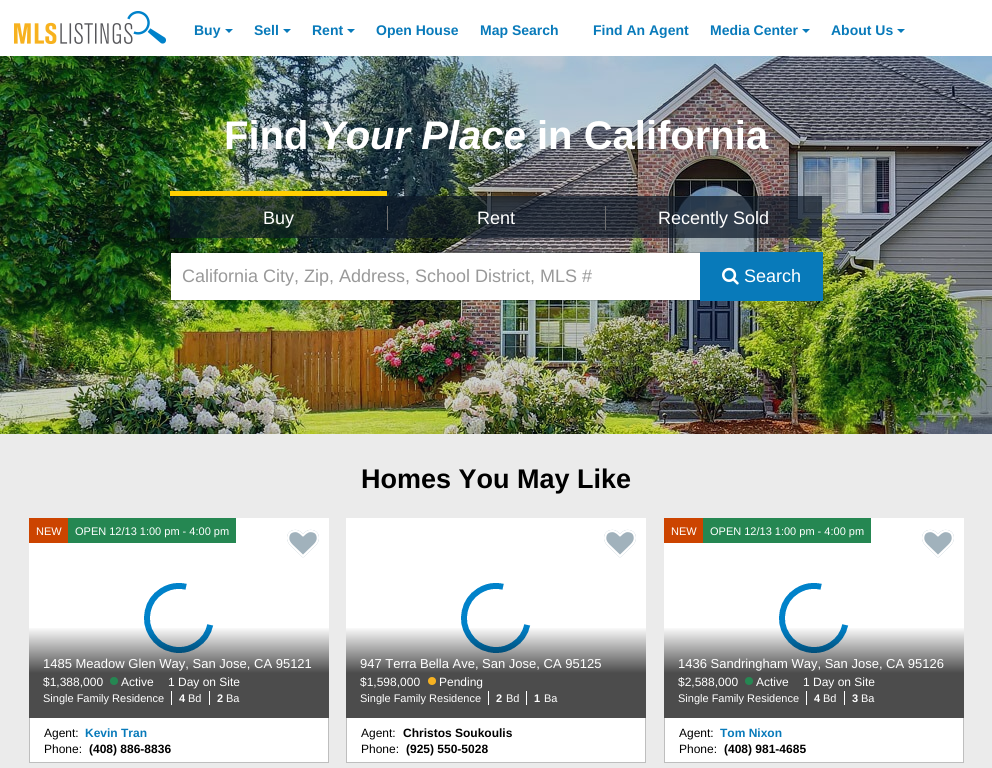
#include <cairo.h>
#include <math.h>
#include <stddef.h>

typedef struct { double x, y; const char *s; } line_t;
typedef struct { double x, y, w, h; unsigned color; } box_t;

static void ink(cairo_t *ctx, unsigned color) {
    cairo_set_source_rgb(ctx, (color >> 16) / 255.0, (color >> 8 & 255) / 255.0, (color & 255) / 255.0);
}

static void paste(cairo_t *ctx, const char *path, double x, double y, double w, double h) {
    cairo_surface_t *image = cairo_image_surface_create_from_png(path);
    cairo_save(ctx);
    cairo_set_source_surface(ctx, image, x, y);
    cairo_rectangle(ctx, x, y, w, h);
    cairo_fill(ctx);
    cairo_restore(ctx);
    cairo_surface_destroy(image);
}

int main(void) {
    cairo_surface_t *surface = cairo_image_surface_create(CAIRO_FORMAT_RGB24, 992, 768);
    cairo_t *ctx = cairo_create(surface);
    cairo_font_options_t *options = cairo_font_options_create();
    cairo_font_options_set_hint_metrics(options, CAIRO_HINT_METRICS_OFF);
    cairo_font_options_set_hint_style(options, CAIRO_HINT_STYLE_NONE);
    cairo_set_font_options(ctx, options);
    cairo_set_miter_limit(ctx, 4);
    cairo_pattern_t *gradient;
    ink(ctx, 0xFFFFFF);
    cairo_paint(ctx);
    paste(ctx, "media/1.png", 14, 11, 152, 33);
    cairo_select_font_face(ctx, "Liberation Sans", CAIRO_FONT_SLANT_NORMAL, CAIRO_FONT_WEIGHT_BOLD);
    cairo_set_font_size(ctx, 14);
    ink(ctx, 0x087ABA);
    cairo_move_to(ctx, 194, 35);
    cairo_show_text(ctx, "Buy");
    cairo_new_path(ctx);
    cairo_move_to(ctx, 225, 29);
    cairo_line_to(ctx, 233, 29);
    cairo_line_to(ctx, 229, 33);
    cairo_close_path(ctx);
    cairo_fill(ctx);
    cairo_move_to(ctx, 254, 35);
    cairo_show_text(ctx, "Sell");
    cairo_new_path(ctx);
    cairo_move_to(ctx, 283, 29);
    cairo_line_to(ctx, 291, 29);
    cairo_line_to(ctx, 287, 33);
    cairo_close_path(ctx);
    cairo_fill(ctx);
    cairo_move_to(ctx, 312, 35);
    cairo_show_text(ctx, "Rent");
    cairo_new_path(ctx);
    cairo_move_to(ctx, 347, 29);
    cairo_line_to(ctx, 355, 29);
    cairo_line_to(ctx, 351, 33);
    cairo_close_path(ctx);
    cairo_fill(ctx);
    {
        static const line_t items[] = {
            {376, 35, "Open House"},
            {480, 35, "Map Search"},
            {593, 35, "Find An Agent"},
            {710, 35, "Media Center"},
        };
        for (size_t i = 0; i < sizeof items / sizeof *items; i++) {
            cairo_move_to(ctx, items[i].x, items[i].y);
            cairo_show_text(ctx, items[i].s);
        }
    }
    cairo_new_path(ctx);
    cairo_move_to(ctx, 802, 29);
    cairo_line_to(ctx, 810, 29);
    cairo_line_to(ctx, 806, 33);
    cairo_close_path(ctx);
    cairo_fill(ctx);
    cairo_move_to(ctx, 831, 35);
    cairo_show_text(ctx, "About Us");
    cairo_new_path(ctx);
    cairo_move_to(ctx, 897, 29);
    cairo_line_to(ctx, 905, 29);
    cairo_line_to(ctx, 901, 33);
    cairo_close_path(ctx);
    cairo_fill(ctx);
    paste(ctx, "media/2.png", 0, 56, 992, 378);
    cairo_set_font_size(ctx, 40);
    ink(ctx, 0xFFFFFF);
    cairo_move_to(ctx, 224, 149);
    cairo_show_text(ctx, "Find");
    cairo_select_font_face(ctx, "Liberation Sans", CAIRO_FONT_SLANT_ITALIC, CAIRO_FONT_WEIGHT_BOLD);
    cairo_move_to(ctx, 319, 149);
    cairo_show_text(ctx, "Your Place");
    cairo_select_font_face(ctx, "Liberation Sans", CAIRO_FONT_SLANT_NORMAL, CAIRO_FONT_WEIGHT_BOLD);
    cairo_move_to(ctx, 537, 149);
    cairo_show_text(ctx, "in California");
    cairo_set_source_rgba(ctx, 0.047, 0.09, 0.149, 0.7);
    cairo_rectangle(ctx, 170, 196, 217, 42);
    cairo_fill(ctx);
    ink(ctx, 0xFFCF01);
    cairo_rectangle(ctx, 170, 191, 217, 5);
    cairo_fill(ctx);
    cairo_select_font_face(ctx, "Liberation Sans", CAIRO_FONT_SLANT_NORMAL, CAIRO_FONT_WEIGHT_NORMAL);
    cairo_set_font_size(ctx, 18);
    ink(ctx, 0xFFFFFF);
    cairo_move_to(ctx, 263, 224);
    cairo_show_text(ctx, "Buy");
    cairo_set_source_rgba(ctx, 0.047, 0.09, 0.149, 0.7);
    cairo_rectangle(ctx, 387, 196, 218, 42);
    cairo_fill(ctx);
    ink(ctx, 0x707070);
    cairo_rectangle(ctx, 387, 206, 1, 24);
    cairo_fill(ctx);
    ink(ctx, 0xFFFFFF);
    cairo_move_to(ctx, 477, 224);
    cairo_show_text(ctx, "Rent");
    cairo_set_source_rgba(ctx, 0.047, 0.09, 0.149, 0.7);
    cairo_rectangle(ctx, 605, 196, 217, 42);
    cairo_fill(ctx);
    ink(ctx, 0x707070);
    cairo_rectangle(ctx, 605, 206, 1, 24);
    cairo_fill(ctx);
    ink(ctx, 0xFFFFFF);
    cairo_move_to(ctx, 658, 224);
    cairo_show_text(ctx, "Recently Sold");
    cairo_rectangle(ctx, 171, 253, 529, 47);
    cairo_fill(ctx);
    cairo_rectangle(ctx, 170.5, 252.5, 530, 48);
    cairo_set_source_rgba(ctx, 0, 0, 0, 0.15);
    cairo_set_line_width(ctx, 1);
    cairo_stroke(ctx);
    ink(ctx, 0x999999);
    cairo_move_to(ctx, 182, 282);
    cairo_show_text(ctx, "California City, Zip, Address, School District, MLS #");
    ink(ctx, 0x087ABA);
    cairo_rectangle(ctx, 700, 252, 123, 49);
    cairo_fill(ctx);
    paste(ctx, "media/3.png", 722, 267, 17, 18);
    ink(ctx, 0xFFFFFF);
    cairo_move_to(ctx, 744, 282);
    cairo_show_text(ctx, "Search");
    ink(ctx, 0xEBEBEB);
    cairo_rectangle(ctx, 0, 434, 992, 334);
    cairo_fill(ctx);
    cairo_select_font_face(ctx, "Liberation Sans", CAIRO_FONT_SLANT_NORMAL, CAIRO_FONT_WEIGHT_BOLD);
    cairo_set_font_size(ctx, 27);
    ink(ctx, 0x000000);
    cairo_move_to(ctx, 361, 488);
    cairo_show_text(ctx, "Homes You May Like");
    ink(ctx, 0xFFFFFF);
    cairo_rectangle(ctx, 29, 518, 300, 244);
    cairo_fill(ctx);
    ink(ctx, 0xCC4400);
    cairo_rectangle(ctx, 29, 518, 39, 25);
    cairo_fill(ctx);
    cairo_select_font_face(ctx, "Liberation Sans", CAIRO_FONT_SLANT_NORMAL, CAIRO_FONT_WEIGHT_NORMAL);
    cairo_set_font_size(ctx, 11);
    ink(ctx, 0xFFFFFF);
    cairo_move_to(ctx, 36, 535);
    cairo_show_text(ctx, "NEW");
    ink(ctx, 0x258752);
    cairo_rectangle(ctx, 68, 518, 168, 25);
    cairo_fill(ctx);
    ink(ctx, 0xFFFFFF);
    cairo_move_to(ctx, 75, 535);
    cairo_show_text(ctx, "OPEN 12/13 1:00 pm - 4:00 pm");
    paste(ctx, "media/4.png", 144, 583, 70, 70);
    gradient = cairo_pattern_create_linear(179, 613, 179, 718);
    cairo_pattern_add_color_stop_rgba(gradient, 0.13, 0, 0, 0, 0);
    cairo_pattern_add_color_stop_rgba(gradient, 0.57, 0, 0, 0, 0.7);
    cairo_set_source(ctx, gradient);
    cairo_pattern_destroy(gradient);
    cairo_rectangle(ctx, 29, 628, 300, 90);
    cairo_fill(ctx);
    cairo_set_font_size(ctx, 13);
    ink(ctx, 0xFFFFFF);
    cairo_move_to(ctx, 43, 668);
    cairo_show_text(ctx, "1485 Meadow Glen Way, San Jose, CA 95121");
    cairo_set_font_size(ctx, 12);
    cairo_move_to(ctx, 43, 686);
    cairo_show_text(ctx, "$1,388,000");
    ink(ctx, 0x258752);
    cairo_new_path(ctx);
    cairo_arc(ctx, 114, 681, 4, 0, 2 * M_PI);
    cairo_fill(ctx);
    ink(ctx, 0xFFFFFF);
    cairo_move_to(ctx, 121, 686);
    cairo_show_text(ctx, "Active");
    cairo_move_to(ctx, 168, 686);
    cairo_show_text(ctx, "1 Day on Site");
    cairo_rectangle(ctx, 171, 691, 1, 14);
    cairo_fill(ctx);
    cairo_set_font_size(ctx, 11);
    cairo_move_to(ctx, 43, 702);
    cairo_show_text(ctx, "Single Family Residence");
    cairo_rectangle(ctx, 209, 691, 1, 14);
    cairo_fill(ctx);
    cairo_select_font_face(ctx, "Liberation Sans", CAIRO_FONT_SLANT_NORMAL, CAIRO_FONT_WEIGHT_BOLD);
    cairo_move_to(ctx, 179, 702);
    cairo_show_text(ctx, "4");
    cairo_select_font_face(ctx, "Liberation Sans", CAIRO_FONT_SLANT_NORMAL, CAIRO_FONT_WEIGHT_NORMAL);
    cairo_move_to(ctx, 188, 702);
    cairo_show_text(ctx, "Bd");
    cairo_select_font_face(ctx, "Liberation Sans", CAIRO_FONT_SLANT_NORMAL, CAIRO_FONT_WEIGHT_BOLD);
    cairo_move_to(ctx, 217, 702);
    cairo_show_text(ctx, "2");
    cairo_select_font_face(ctx, "Liberation Sans", CAIRO_FONT_SLANT_NORMAL, CAIRO_FONT_WEIGHT_NORMAL);
    cairo_move_to(ctx, 226, 702);
    cairo_show_text(ctx, "Ba");
    {
        static const box_t items[] = {
            {328, 718, 1, 45, 0xBEBEBE},
            {29, 762, 300, 1, 0xBEBEBE},
            {29, 718, 1, 45, 0xBEBEBE},
        };
        for (size_t i = 0; i < sizeof items / sizeof *items; i++) {
            ink(ctx, items[i].color);
            cairo_rectangle(ctx, items[i].x, items[i].y, items[i].w, items[i].h);
            cairo_fill(ctx);
        }
    }
    paste(ctx, "media/5.png", 287, 529, 32, 29);
    paste(ctx, "media/6.png", 287, 530, 32, 27);
    cairo_set_font_size(ctx, 12);
    ink(ctx, 0x000000);
    cairo_move_to(ctx, 44, 737);
    cairo_show_text(ctx, "Agent:");
    cairo_select_font_face(ctx, "Liberation Sans", CAIRO_FONT_SLANT_NORMAL, CAIRO_FONT_WEIGHT_BOLD);
    ink(ctx, 0x087ABA);
    cairo_move_to(ctx, 85, 737);
    cairo_show_text(ctx, "Kevin Tran");
    cairo_select_font_face(ctx, "Liberation Sans", CAIRO_FONT_SLANT_NORMAL, CAIRO_FONT_WEIGHT_NORMAL);
    ink(ctx, 0x000000);
    cairo_move_to(ctx, 44, 753);
    cairo_show_text(ctx, "Phone:");
    cairo_select_font_face(ctx, "Liberation Sans", CAIRO_FONT_SLANT_NORMAL, CAIRO_FONT_WEIGHT_BOLD);
    cairo_move_to(ctx, 89, 753);
    cairo_show_text(ctx, "(408) 886-8836");
    ink(ctx, 0xFFFFFF);
    cairo_rectangle(ctx, 346, 518, 300, 244);
    cairo_fill(ctx);
    paste(ctx, "media/4.png", 461, 583, 70, 70);
    gradient = cairo_pattern_create_linear(496, 613, 496, 718);
    cairo_pattern_add_color_stop_rgba(gradient, 0.13, 0, 0, 0, 0);
    cairo_pattern_add_color_stop_rgba(gradient, 0.57, 0, 0, 0, 0.7);
    cairo_set_source(ctx, gradient);
    cairo_pattern_destroy(gradient);
    cairo_rectangle(ctx, 346, 628, 300, 90);
    cairo_fill(ctx);
    cairo_select_font_face(ctx, "Liberation Sans", CAIRO_FONT_SLANT_NORMAL, CAIRO_FONT_WEIGHT_NORMAL);
    cairo_set_font_size(ctx, 13);
    ink(ctx, 0xFFFFFF);
    cairo_move_to(ctx, 360, 668);
    cairo_show_text(ctx, "947 Terra Bella Ave, San Jose, CA 95125");
    cairo_set_font_size(ctx, 12);
    cairo_move_to(ctx, 360, 686);
    cairo_show_text(ctx, "$1,598,000");
    ink(ctx, 0xF6B221);
    cairo_new_path(ctx);
    cairo_arc(ctx, 432, 681, 4, 0, 2 * M_PI);
    cairo_fill(ctx);
    ink(ctx, 0xFFFFFF);
    cairo_move_to(ctx, 439, 686);
    cairo_show_text(ctx, "Pending");
    cairo_rectangle(ctx, 488, 691, 1, 14);
    cairo_fill(ctx);
    cairo_set_font_size(ctx, 11);
    cairo_move_to(ctx, 360, 702);
    cairo_show_text(ctx, "Single Family Residence");
    cairo_rectangle(ctx, 526, 691, 1, 14);
    cairo_fill(ctx);
    cairo_select_font_face(ctx, "Liberation Sans", CAIRO_FONT_SLANT_NORMAL, CAIRO_FONT_WEIGHT_BOLD);
    cairo_move_to(ctx, 496, 702);
    cairo_show_text(ctx, "2");
    cairo_select_font_face(ctx, "Liberation Sans", CAIRO_FONT_SLANT_NORMAL, CAIRO_FONT_WEIGHT_NORMAL);
    cairo_move_to(ctx, 506, 702);
    cairo_show_text(ctx, "Bd");
    cairo_select_font_face(ctx, "Liberation Sans", CAIRO_FONT_SLANT_NORMAL, CAIRO_FONT_WEIGHT_BOLD);
    cairo_move_to(ctx, 534, 702);
    cairo_show_text(ctx, "1");
    cairo_select_font_face(ctx, "Liberation Sans", CAIRO_FONT_SLANT_NORMAL, CAIRO_FONT_WEIGHT_NORMAL);
    cairo_move_to(ctx, 544, 702);
    cairo_show_text(ctx, "Ba");
    {
        static const box_t items[] = {
            {645, 718, 1, 45, 0xBEBEBE},
            {346, 762, 300, 1, 0xBEBEBE},
            {346, 718, 1, 45, 0xBEBEBE},
        };
        for (size_t i = 0; i < sizeof items / sizeof *items; i++) {
            ink(ctx, items[i].color);
            cairo_rectangle(ctx, items[i].x, items[i].y, items[i].w, items[i].h);
            cairo_fill(ctx);
        }
    }
    paste(ctx, "media/5.png", 604, 529, 32, 29);
    paste(ctx, "media/6.png", 604, 530, 32, 27);
    cairo_set_font_size(ctx, 12);
    ink(ctx, 0x000000);
    cairo_move_to(ctx, 361, 737);
    cairo_show_text(ctx, "Agent:");
    cairo_select_font_face(ctx, "Liberation Sans", CAIRO_FONT_SLANT_NORMAL, CAIRO_FONT_WEIGHT_BOLD);
    cairo_move_to(ctx, 403, 737);
    cairo_show_text(ctx, "Christos Soukoulis");
    cairo_select_font_face(ctx, "Liberation Sans", CAIRO_FONT_SLANT_NORMAL, CAIRO_FONT_WEIGHT_NORMAL);
    cairo_move_to(ctx, 361, 753);
    cairo_show_text(ctx, "Phone:");
    cairo_select_font_face(ctx, "Liberation Sans", CAIRO_FONT_SLANT_NORMAL, CAIRO_FONT_WEIGHT_BOLD);
    cairo_move_to(ctx, 406, 753);
    cairo_show_text(ctx, "(925) 550-5028");
    ink(ctx, 0xFFFFFF);
    cairo_rectangle(ctx, 664, 518, 300, 244);
    cairo_fill(ctx);
    ink(ctx, 0xCC4400);
    cairo_rectangle(ctx, 664, 518, 39, 25);
    cairo_fill(ctx);
    cairo_select_font_face(ctx, "Liberation Sans", CAIRO_FONT_SLANT_NORMAL, CAIRO_FONT_WEIGHT_NORMAL);
    cairo_set_font_size(ctx, 11);
    ink(ctx, 0xFFFFFF);
    cairo_move_to(ctx, 671, 535);
    cairo_show_text(ctx, "NEW");
    ink(ctx, 0x258752);
    cairo_rectangle(ctx, 703, 518, 168, 25);
    cairo_fill(ctx);
    ink(ctx, 0xFFFFFF);
    cairo_move_to(ctx, 710, 535);
    cairo_show_text(ctx, "OPEN 12/13 1:00 pm - 4:00 pm");
    paste(ctx, "media/4.png", 779, 583, 70, 70);
    gradient = cairo_pattern_create_linear(814, 613, 814, 718);
    cairo_pattern_add_color_stop_rgba(gradient, 0.13, 0, 0, 0, 0);
    cairo_pattern_add_color_stop_rgba(gradient, 0.57, 0, 0, 0, 0.7);
    cairo_set_source(ctx, gradient);
    cairo_pattern_destroy(gradient);
    cairo_rectangle(ctx, 664, 628, 300, 90);
    cairo_fill(ctx);
    cairo_set_font_size(ctx, 13);
    ink(ctx, 0xFFFFFF);
    cairo_move_to(ctx, 678, 668);
    cairo_show_text(ctx, "1436 Sandringham Way, San Jose, CA 95126");
    cairo_set_font_size(ctx, 12);
    cairo_move_to(ctx, 678, 686);
    cairo_show_text(ctx, "$2,588,000");
    ink(ctx, 0x258752);
    cairo_new_path(ctx);
    cairo_arc(ctx, 749, 681, 4, 0, 2 * M_PI);
    cairo_fill(ctx);
    ink(ctx, 0xFFFFFF);
    cairo_move_to(ctx, 756, 686);
    cairo_show_text(ctx, "Active");
    cairo_move_to(ctx, 803, 686);
    cairo_show_text(ctx, "1 Day on Site");
    cairo_rectangle(ctx, 806, 691, 1, 14);
    cairo_fill(ctx);
    cairo_set_font_size(ctx, 11);
    cairo_move_to(ctx, 678, 702);
    cairo_show_text(ctx, "Single Family Residence");
    cairo_rectangle(ctx, 844, 691, 1, 14);
    cairo_fill(ctx);
    cairo_select_font_face(ctx, "Liberation Sans", CAIRO_FONT_SLANT_NORMAL, CAIRO_FONT_WEIGHT_BOLD);
    cairo_move_to(ctx, 814, 702);
    cairo_show_text(ctx, "4");
    cairo_select_font_face(ctx, "Liberation Sans", CAIRO_FONT_SLANT_NORMAL, CAIRO_FONT_WEIGHT_NORMAL);
    cairo_move_to(ctx, 823, 702);
    cairo_show_text(ctx, "Bd");
    cairo_select_font_face(ctx, "Liberation Sans", CAIRO_FONT_SLANT_NORMAL, CAIRO_FONT_WEIGHT_BOLD);
    cairo_move_to(ctx, 852, 702);
    cairo_show_text(ctx, "3");
    cairo_select_font_face(ctx, "Liberation Sans", CAIRO_FONT_SLANT_NORMAL, CAIRO_FONT_WEIGHT_NORMAL);
    cairo_move_to(ctx, 861, 702);
    cairo_show_text(ctx, "Ba");
    {
        static const box_t items[] = {
            {963, 718, 1, 45, 0xBEBEBE},
            {664, 762, 300, 1, 0xBEBEBE},
            {664, 718, 1, 45, 0xBEBEBE},
        };
        for (size_t i = 0; i < sizeof items / sizeof *items; i++) {
            ink(ctx, items[i].color);
            cairo_rectangle(ctx, items[i].x, items[i].y, items[i].w, items[i].h);
            cairo_fill(ctx);
        }
    }
    paste(ctx, "media/5.png", 922, 529, 32, 29);
    paste(ctx, "media/6.png", 922, 530, 32, 27);
    cairo_set_font_size(ctx, 12);
    ink(ctx, 0x000000);
    cairo_move_to(ctx, 679, 737);
    cairo_show_text(ctx, "Agent:");
    cairo_select_font_face(ctx, "Liberation Sans", CAIRO_FONT_SLANT_NORMAL, CAIRO_FONT_WEIGHT_BOLD);
    ink(ctx, 0x087ABA);
    cairo_move_to(ctx, 720, 737);
    cairo_show_text(ctx, "Tom Nixon");
    cairo_select_font_face(ctx, "Liberation Sans", CAIRO_FONT_SLANT_NORMAL, CAIRO_FONT_WEIGHT_NORMAL);
    ink(ctx, 0x000000);
    cairo_move_to(ctx, 679, 753);
    cairo_show_text(ctx, "Phone:");
    cairo_select_font_face(ctx, "Liberation Sans", CAIRO_FONT_SLANT_NORMAL, CAIRO_FONT_WEIGHT_BOLD);
    cairo_move_to(ctx, 724, 753);
    cairo_show_text(ctx, "(408) 981-4685");
    cairo_surface_write_to_png(surface, "image.png");
    cairo_font_options_destroy(options);
    cairo_destroy(ctx);
    cairo_surface_destroy(surface);
    return 0;
}
